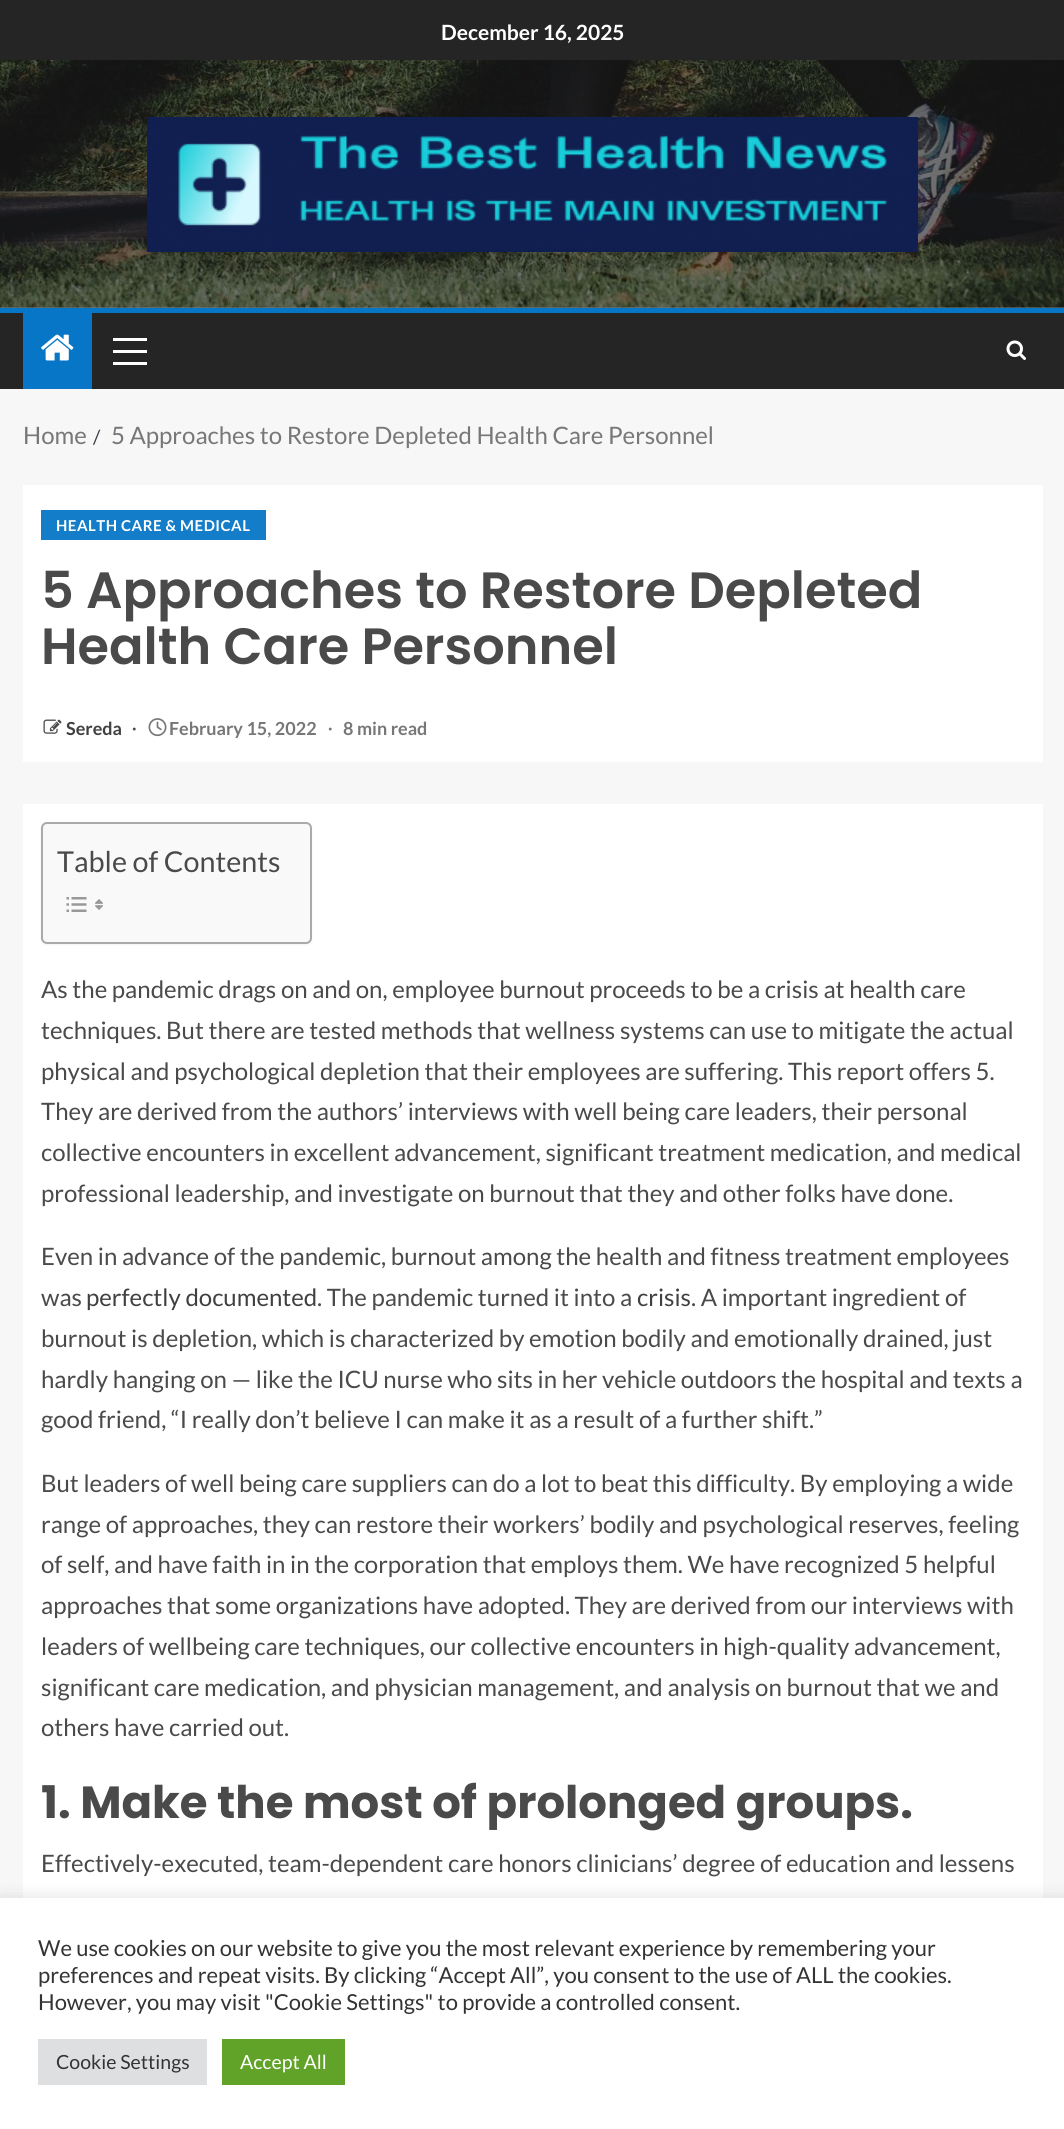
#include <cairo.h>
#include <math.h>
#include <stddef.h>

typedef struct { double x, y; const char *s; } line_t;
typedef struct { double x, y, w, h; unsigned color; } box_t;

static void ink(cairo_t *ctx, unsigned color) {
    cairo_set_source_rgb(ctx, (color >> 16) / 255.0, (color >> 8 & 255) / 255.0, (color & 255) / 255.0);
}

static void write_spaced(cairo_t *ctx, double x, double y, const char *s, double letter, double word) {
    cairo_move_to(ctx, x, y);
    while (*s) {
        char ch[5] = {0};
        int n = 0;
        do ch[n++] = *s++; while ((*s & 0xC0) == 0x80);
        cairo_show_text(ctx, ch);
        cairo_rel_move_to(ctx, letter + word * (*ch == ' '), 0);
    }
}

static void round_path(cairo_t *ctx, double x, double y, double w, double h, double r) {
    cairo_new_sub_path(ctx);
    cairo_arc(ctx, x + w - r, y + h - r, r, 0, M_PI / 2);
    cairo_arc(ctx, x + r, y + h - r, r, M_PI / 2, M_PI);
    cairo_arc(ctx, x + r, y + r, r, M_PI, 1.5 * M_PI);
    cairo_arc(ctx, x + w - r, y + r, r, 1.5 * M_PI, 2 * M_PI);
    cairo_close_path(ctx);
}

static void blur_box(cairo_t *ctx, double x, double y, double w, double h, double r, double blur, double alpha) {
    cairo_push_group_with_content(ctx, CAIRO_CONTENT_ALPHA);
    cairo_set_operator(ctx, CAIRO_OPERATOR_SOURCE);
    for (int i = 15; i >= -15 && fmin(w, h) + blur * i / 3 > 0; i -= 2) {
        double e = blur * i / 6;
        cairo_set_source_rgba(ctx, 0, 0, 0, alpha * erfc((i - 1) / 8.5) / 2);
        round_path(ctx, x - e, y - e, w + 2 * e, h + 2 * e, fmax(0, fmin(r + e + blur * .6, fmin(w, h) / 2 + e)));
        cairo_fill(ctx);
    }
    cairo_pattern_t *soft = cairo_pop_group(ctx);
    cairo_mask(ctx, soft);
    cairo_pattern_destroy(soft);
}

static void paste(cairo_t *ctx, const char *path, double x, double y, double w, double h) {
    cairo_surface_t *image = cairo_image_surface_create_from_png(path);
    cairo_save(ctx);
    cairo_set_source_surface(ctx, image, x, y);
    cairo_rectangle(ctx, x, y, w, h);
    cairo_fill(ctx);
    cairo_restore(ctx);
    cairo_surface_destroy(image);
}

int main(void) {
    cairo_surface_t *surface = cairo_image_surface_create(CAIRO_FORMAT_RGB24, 1064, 2129);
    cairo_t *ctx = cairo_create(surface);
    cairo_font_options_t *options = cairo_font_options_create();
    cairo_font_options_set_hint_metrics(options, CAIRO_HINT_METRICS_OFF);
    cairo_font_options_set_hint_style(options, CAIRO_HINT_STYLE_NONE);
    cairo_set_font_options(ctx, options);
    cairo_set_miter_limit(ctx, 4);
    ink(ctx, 0xF7F7F7);
    cairo_paint(ctx);
    ink(ctx, 0x7C7C7C);
    cairo_rectangle(ctx, 0, 307, 1064, 1);
    cairo_fill(ctx);
    ink(ctx, 0x252525);
    cairo_rectangle(ctx, 0, 0, 1064, 60);
    cairo_fill(ctx);
    cairo_select_font_face(ctx, "Lato", CAIRO_FONT_SLANT_NORMAL, CAIRO_FONT_WEIGHT_BOLD);
    cairo_set_font_size(ctx, 21);
    ink(ctx, 0xFFFFFF);
    cairo_move_to(ctx, 441, 40);
    cairo_show_text(ctx, "December 16, 2025");
    paste(ctx, "media/1.png", 0, 60, 1064, 248);
    paste(ctx, "media/2.png", 147, 117, 771, 135);
    {
        static const box_t items[] = {
            {0, 313, 1064, 76, 0x252525},
            {0, 308, 1064, 5, 0x0776C6},
            {23, 313, 69, 76, 0x0776C6},
        };
        for (size_t i = 0; i < sizeof items / sizeof *items; i++) {
            ink(ctx, items[i].color);
            cairo_rectangle(ctx, items[i].x, items[i].y, items[i].w, items[i].h);
            cairo_fill(ctx);
        }
    }
    paste(ctx, "media/3.png", 41, 334, 33, 27);
    {
        static const box_t items[] = {
            {113, 350, 34, 3, 0xFFFFFF},
            {113, 338, 34, 3, 0xFFFFFF},
            {113, 362, 34, 3, 0xFFFFFF},
        };
        for (size_t i = 0; i < sizeof items / sizeof *items; i++) {
            ink(ctx, items[i].color);
            cairo_rectangle(ctx, items[i].x, items[i].y, items[i].w, items[i].h);
            cairo_fill(ctx);
        }
    }
    paste(ctx, "media/4.png", 1006, 340, 20, 20);
    cairo_select_font_face(ctx, "Lato", CAIRO_FONT_SLANT_NORMAL, CAIRO_FONT_WEIGHT_NORMAL);
    cairo_set_font_size(ctx, 24);
    ink(ctx, 0x777777);
    cairo_move_to(ctx, 23, 444);
    cairo_show_text(ctx, "Home");
    cairo_set_font_size(ctx, 19.5);
    ink(ctx, 0x393E46);
    cairo_move_to(ctx, 93, 444);
    cairo_show_text(ctx, "/");
    cairo_set_font_size(ctx, 24);
    ink(ctx, 0x777777);
    cairo_move_to(ctx, 111, 444);
    cairo_show_text(ctx, "5 Approaches to Restore Depleted Health Care Personnel");
    ink(ctx, 0xFFFFFF);
    cairo_rectangle(ctx, 23, 485, 1020, 277);
    cairo_fill(ctx);
    ink(ctx, 0x137DC9);
    cairo_rectangle(ctx, 41, 510, 225, 30);
    cairo_fill(ctx);
    cairo_select_font_face(ctx, "Lato", CAIRO_FONT_SLANT_NORMAL, CAIRO_FONT_WEIGHT_BOLD);
    cairo_set_font_size(ctx, 15);
    ink(ctx, 0xFFFFFF);
    write_spaced(ctx, 56, 531, "HEALTH CARE & MEDICAL", 0.5, 0);
    cairo_select_font_face(ctx, "Poppins SemiBold", CAIRO_FONT_SLANT_NORMAL, CAIRO_FONT_WEIGHT_NORMAL);
    cairo_set_font_size(ctx, 51);
    ink(ctx, 0x4A4A4A);
    cairo_move_to(ctx, 41, 608);
    cairo_show_text(ctx, "5 Approaches to Restore Depleted");
    cairo_move_to(ctx, 41, 664);
    cairo_show_text(ctx, "Health Care Personnel");
    paste(ctx, "media/5.png", 43, 719, 19, 15);
    cairo_select_font_face(ctx, "Lato", CAIRO_FONT_SLANT_NORMAL, CAIRO_FONT_WEIGHT_BOLD);
    cairo_set_font_size(ctx, 18);
    ink(ctx, 0x404040);
    cairo_move_to(ctx, 66, 735);
    cairo_show_text(ctx, "Sereda");
    cairo_select_font_face(ctx, "Liberation Serif", CAIRO_FONT_SLANT_NORMAL, CAIRO_FONT_WEIGHT_BOLD);
    ink(ctx, 0x4A4A4A);
    cairo_move_to(ctx, 132, 735);
    cairo_show_text(ctx, "∙");
    paste(ctx, "media/6.png", 148, 718, 19, 19);
    cairo_select_font_face(ctx, "Lato", CAIRO_FONT_SLANT_NORMAL, CAIRO_FONT_WEIGHT_BOLD);
    ink(ctx, 0x777777);
    cairo_move_to(ctx, 169, 735);
    cairo_show_text(ctx, "February 15, 2022");
    cairo_select_font_face(ctx, "Liberation Serif", CAIRO_FONT_SLANT_NORMAL, CAIRO_FONT_WEIGHT_BOLD);
    cairo_move_to(ctx, 328, 735);
    cairo_show_text(ctx, "∙");
    cairo_select_font_face(ctx, "Lato", CAIRO_FONT_SLANT_NORMAL, CAIRO_FONT_WEIGHT_BOLD);
    cairo_move_to(ctx, 343, 735);
    cairo_show_text(ctx, "8 min read");
    ink(ctx, 0xFFFFFF);
    cairo_rectangle(ctx, 23, 804, 1020, 1094);
    cairo_fill(ctx);
    ink(ctx, 0x000000);
    blur_box(ctx, 41, 824, 271, 121, 6, 1, 0.05);
    ink(ctx, 0xF9F9F9);
    round_path(ctx, 42, 823, 269, 120, 5);
    cairo_fill_preserve(ctx);
    ink(ctx, 0xAAAAAA);
    cairo_stroke(ctx);
    cairo_select_font_face(ctx, "Lato", CAIRO_FONT_SLANT_NORMAL, CAIRO_FONT_WEIGHT_NORMAL);
    cairo_set_font_size(ctx, 28.75);
    ink(ctx, 0x4A4A4A);
    cairo_move_to(ctx, 57, 872);
    cairo_show_text(ctx, "Table of Contents");
    paste(ctx, "media/7.png", 66, 897, 21, 15);
    paste(ctx, "media/8.png", 95, 899, 8, 11);
    cairo_set_font_size(ctx, 24);
    {
        static const line_t items[] = {
            {41, 998, "As the pandemic drags on and on, employee burnout proceeds to be a crisis at health care"},
            {41, 1039, "techniques. But there are tested methods that wellness systems can use to mitigate the actual"},
            {41, 1080, "physical and psychological depletion that their employees are suffering. This report offers 5."},
            {41, 1120, "They are derived from the authors’ interviews with well being care leaders, their personal"},
            {41, 1161, "collective encounters in excellent advancement, significant treatment medication, and medical"},
            {41, 1202, "professional leadership, and investigate on burnout that they and other folks have done."},
            {41, 1265, "Even in advance of the pandemic, burnout among the health and fitness treatment employees"},
            {41, 1306, "was"},
        };
        for (size_t i = 0; i < sizeof items / sizeof *items; i++) {
            cairo_move_to(ctx, items[i].x, items[i].y);
            cairo_show_text(ctx, items[i].s);
        }
    }
    ink(ctx, 0x404040);
    cairo_move_to(ctx, 86, 1306);
    cairo_show_text(ctx, "perfectly documented");
    ink(ctx, 0x4A4A4A);
    cairo_move_to(ctx, 317, 1306);
    cairo_show_text(ctx, ". The pandemic turned it into a");
    ink(ctx, 0x404040);
    cairo_move_to(ctx, 637, 1306);
    cairo_show_text(ctx, "crisis");
    ink(ctx, 0x4A4A4A);
    {
        static const line_t items[] = {
            {691, 1306, ". A important ingredient of"},
            {41, 1347, "burnout is depletion, which is characterized by emotion bodily and emotionally drained, just"},
            {41, 1388, "hardly hanging on — like the ICU nurse who sits in her vehicle outdoors the hospital and texts a"},
            {41, 1428, "good friend, “I really don’t believe I can make it as a result of a further shift.”"},
            {41, 1492, "But leaders of well being care suppliers can do a lot to beat this difficulty. By employing a wide"},
            {41, 1533, "range of approaches, they can restore their workers’ bodily and psychological reserves, feeling"},
            {41, 1573, "of self, and have faith in in the corporation that employs them. We have recognized 5 helpful"},
            {41, 1614, "approaches that some organizations have adopted. They are derived from our interviews with"},
            {41, 1655, "leaders of wellbeing care techniques, our collective encounters in high-quality advancement,"},
            {41, 1696, "significant care medication, and physician management, and analysis on burnout that we and"},
            {41, 1736, "others have carried out."},
        };
        for (size_t i = 0; i < sizeof items / sizeof *items; i++) {
            cairo_move_to(ctx, items[i].x, items[i].y);
            cairo_show_text(ctx, items[i].s);
        }
    }
    cairo_select_font_face(ctx, "Poppins", CAIRO_FONT_SLANT_NORMAL, CAIRO_FONT_WEIGHT_BOLD);
    cairo_set_font_size(ctx, 45);
    cairo_move_to(ctx, 41, 1818);
    cairo_show_text(ctx, "1. Make the most of prolonged groups.");
    cairo_select_font_face(ctx, "Lato", CAIRO_FONT_SLANT_NORMAL, CAIRO_FONT_WEIGHT_NORMAL);
    cairo_set_font_size(ctx, 24);
    cairo_move_to(ctx, 41, 1872);
    cairo_show_text(ctx, "Effectively-executed, team-dependent care honors clinicians’ degree of education and lessens");
    ink(ctx, 0xACABAB);
    blur_box(ctx, 0, 1896, 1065, 233, 0, 7.5, 0.3);
    ink(ctx, 0xFFFFFF);
    cairo_rectangle(ctx, 0, 1898, 1064, 231);
    cairo_fill(ctx);
    cairo_set_font_size(ctx, 22);
    ink(ctx, 0x333333);
    {
        static const line_t items[] = {
            {38, 1956, "We use cookies on our website to give you the most relevant experience by remembering your"},
            {38, 1983, "preferences and repeat visits. By clicking “Accept All”, you consent to the use of ALL the cookies."},
            {38, 2010, "However, you may visit \"Cookie Settings\" to provide a controlled consent."},
        };
        for (size_t i = 0; i < sizeof items / sizeof *items; i++) {
            cairo_move_to(ctx, items[i].x, items[i].y);
            cairo_show_text(ctx, items[i].s);
        }
    }
    ink(ctx, 0xDEDFE0);
    cairo_rectangle(ctx, 38, 2039, 169, 46);
    cairo_fill(ctx);
    cairo_set_font_size(ctx, 19.5);
    ink(ctx, 0x333333);
    cairo_move_to(ctx, 56, 2069);
    cairo_show_text(ctx, "Cookie Settings");
    ink(ctx, 0x61A229);
    cairo_rectangle(ctx, 222, 2039, 123, 46);
    cairo_fill(ctx);
    ink(ctx, 0xFFFFFF);
    cairo_move_to(ctx, 240, 2069);
    cairo_show_text(ctx, "Accept All");
    cairo_surface_write_to_png(surface, "image.png");
    cairo_font_options_destroy(options);
    cairo_destroy(ctx);
    cairo_surface_destroy(surface);
    return 0;
}
